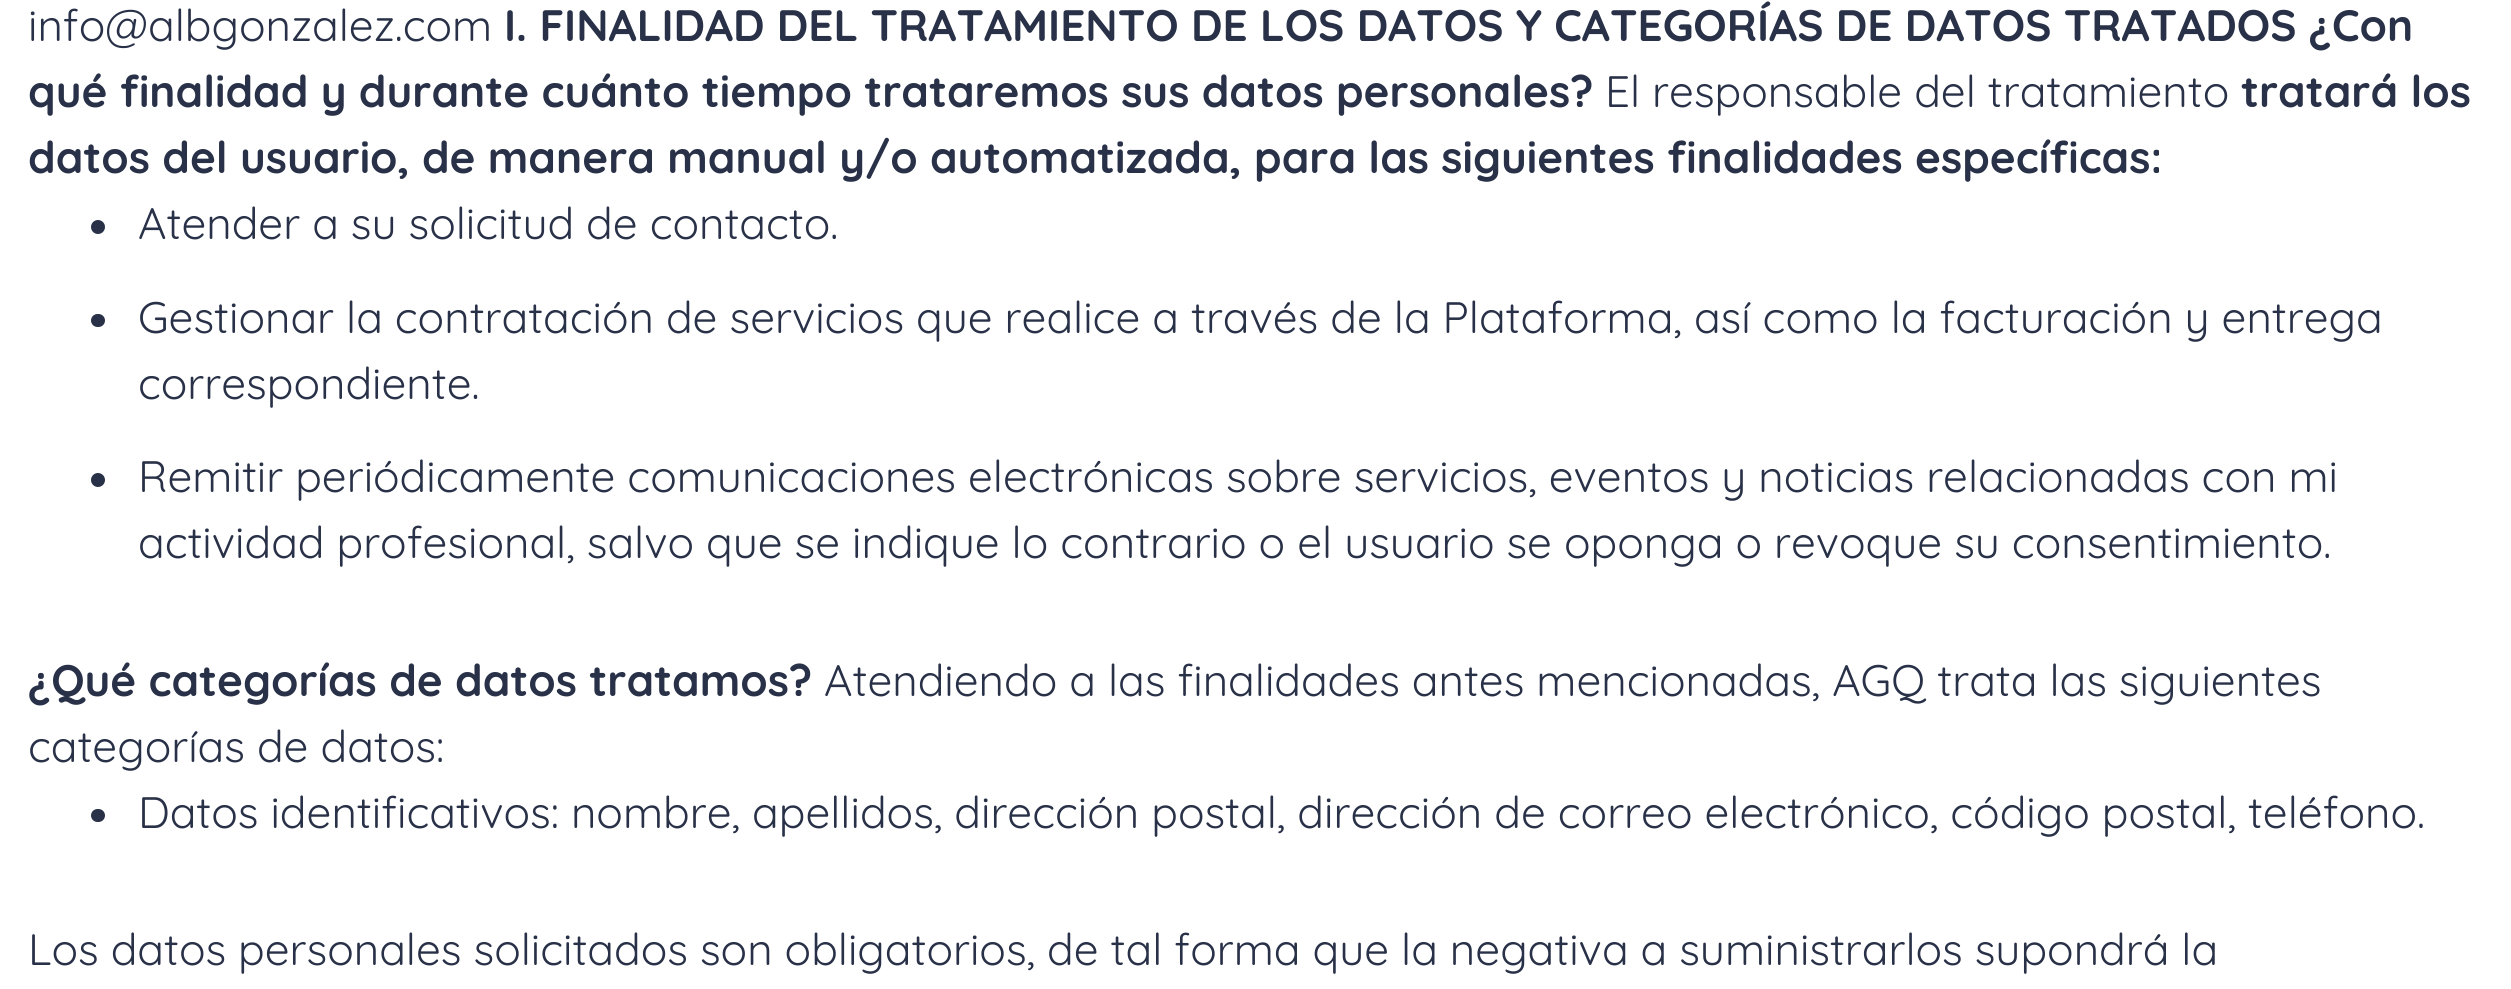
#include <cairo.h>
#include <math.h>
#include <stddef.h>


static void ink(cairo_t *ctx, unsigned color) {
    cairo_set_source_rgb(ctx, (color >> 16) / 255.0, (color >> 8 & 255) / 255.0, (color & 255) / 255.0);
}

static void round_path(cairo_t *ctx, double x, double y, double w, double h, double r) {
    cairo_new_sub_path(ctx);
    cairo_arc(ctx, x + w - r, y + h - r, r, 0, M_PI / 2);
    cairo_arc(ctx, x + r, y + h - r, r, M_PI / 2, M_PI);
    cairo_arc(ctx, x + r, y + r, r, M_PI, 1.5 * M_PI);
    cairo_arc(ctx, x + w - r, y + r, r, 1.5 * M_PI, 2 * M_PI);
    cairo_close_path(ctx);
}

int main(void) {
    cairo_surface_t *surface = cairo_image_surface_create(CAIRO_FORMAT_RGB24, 2511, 989);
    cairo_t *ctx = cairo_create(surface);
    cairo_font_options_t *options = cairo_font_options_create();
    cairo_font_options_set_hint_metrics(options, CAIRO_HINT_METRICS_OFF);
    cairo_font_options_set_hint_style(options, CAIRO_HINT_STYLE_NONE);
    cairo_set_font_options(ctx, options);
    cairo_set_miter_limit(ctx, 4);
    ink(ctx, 0xFFFFFF);
    cairo_paint(ctx);
    cairo_select_font_face(ctx, "Quicksand", CAIRO_FONT_SLANT_NORMAL, CAIRO_FONT_WEIGHT_NORMAL);
    cairo_set_font_size(ctx, 44);
    ink(ctx, 0x283147);
    cairo_move_to(ctx, 28, 41);
    cairo_show_text(ctx, "info@albgonzalez.com");
    cairo_select_font_face(ctx, "Quicksand", CAIRO_FONT_SLANT_NORMAL, CAIRO_FONT_WEIGHT_BOLD);
    cairo_move_to(ctx, 504, 41);
    cairo_show_text(ctx, "I. FINALIDAD DEL TRATAMIENTO DE LOS DATOS Y CATEGORÍAS DE DATOS TRATADOS ¿Con");
    cairo_move_to(ctx, 28, 107);
    cairo_show_text(ctx, "qué finalidad y durante cuánto tiempo trataremos sus datos personales?");
    cairo_select_font_face(ctx, "Quicksand", CAIRO_FONT_SLANT_NORMAL, CAIRO_FONT_WEIGHT_NORMAL);
    cairo_move_to(ctx, 1605, 107);
    cairo_show_text(ctx, "El responsable del tratamiento");
    cairo_select_font_face(ctx, "Quicksand", CAIRO_FONT_SLANT_NORMAL, CAIRO_FONT_WEIGHT_BOLD);
    cairo_move_to(ctx, 2241, 107);
    cairo_show_text(ctx, "tratará los");
    cairo_move_to(ctx, 28, 173);
    cairo_show_text(ctx, "datos del usuario, de manera manual y/o automatizada, para las siguientes finalidades específicas:");
    cairo_new_path(ctx);
    cairo_arc(ctx, 98, 227, 7, 0, 2 * M_PI);
    cairo_fill(ctx);
    cairo_select_font_face(ctx, "Quicksand", CAIRO_FONT_SLANT_NORMAL, CAIRO_FONT_WEIGHT_NORMAL);
    cairo_move_to(ctx, 138, 239);
    cairo_show_text(ctx, "Atender a su solicitud de contacto.");
    round_path(ctx, 91, 314, 14, 13, 6.5);
    cairo_fill(ctx);
    cairo_move_to(ctx, 138, 333);
    cairo_show_text(ctx, "Gestionar la contratación de servicios que realice a través de la Plataforma, así como la facturación y entrega");
    cairo_move_to(ctx, 138, 399);
    cairo_show_text(ctx, "correspondiente.");
    cairo_new_path(ctx);
    cairo_arc(ctx, 98, 480, 7, 0, 2 * M_PI);
    cairo_fill(ctx);
    cairo_move_to(ctx, 138, 492);
    cairo_show_text(ctx, "Remitir periódicamente comunicaciones electrónicas sobre servicios, eventos y noticias relacionadas con mi");
    cairo_move_to(ctx, 138, 558);
    cairo_show_text(ctx, "actividad profesional, salvo que se indique lo contrario o el usuario se oponga o revoque su consentimiento.");
    cairo_select_font_face(ctx, "Quicksand", CAIRO_FONT_SLANT_NORMAL, CAIRO_FONT_WEIGHT_BOLD);
    cairo_move_to(ctx, 28, 696);
    cairo_show_text(ctx, "¿Qué categorías de datos tratamos?");
    cairo_select_font_face(ctx, "Quicksand", CAIRO_FONT_SLANT_NORMAL, CAIRO_FONT_WEIGHT_NORMAL);
    cairo_move_to(ctx, 824, 696);
    cairo_show_text(ctx, "Atendiendo a las finalidades antes mencionadas, AGQ trata las siguientes");
    cairo_move_to(ctx, 28, 762);
    cairo_show_text(ctx, "categorías de datos:");
    round_path(ctx, 91, 809, 14, 13, 6.5);
    cairo_fill(ctx);
    cairo_move_to(ctx, 138, 828);
    cairo_show_text(ctx, "Datos identificativos: nombre, apellidos, dirección postal, dirección de correo electrónico, código postal, teléfono.");
    cairo_move_to(ctx, 28, 965);
    cairo_show_text(ctx, "Los datos personales solicitados son obligatorios, de tal forma que la negativa a suministrarlos supondrá la");
    cairo_surface_write_to_png(surface, "image.png");
    cairo_font_options_destroy(options);
    cairo_destroy(ctx);
    cairo_surface_destroy(surface);
    return 0;
}
